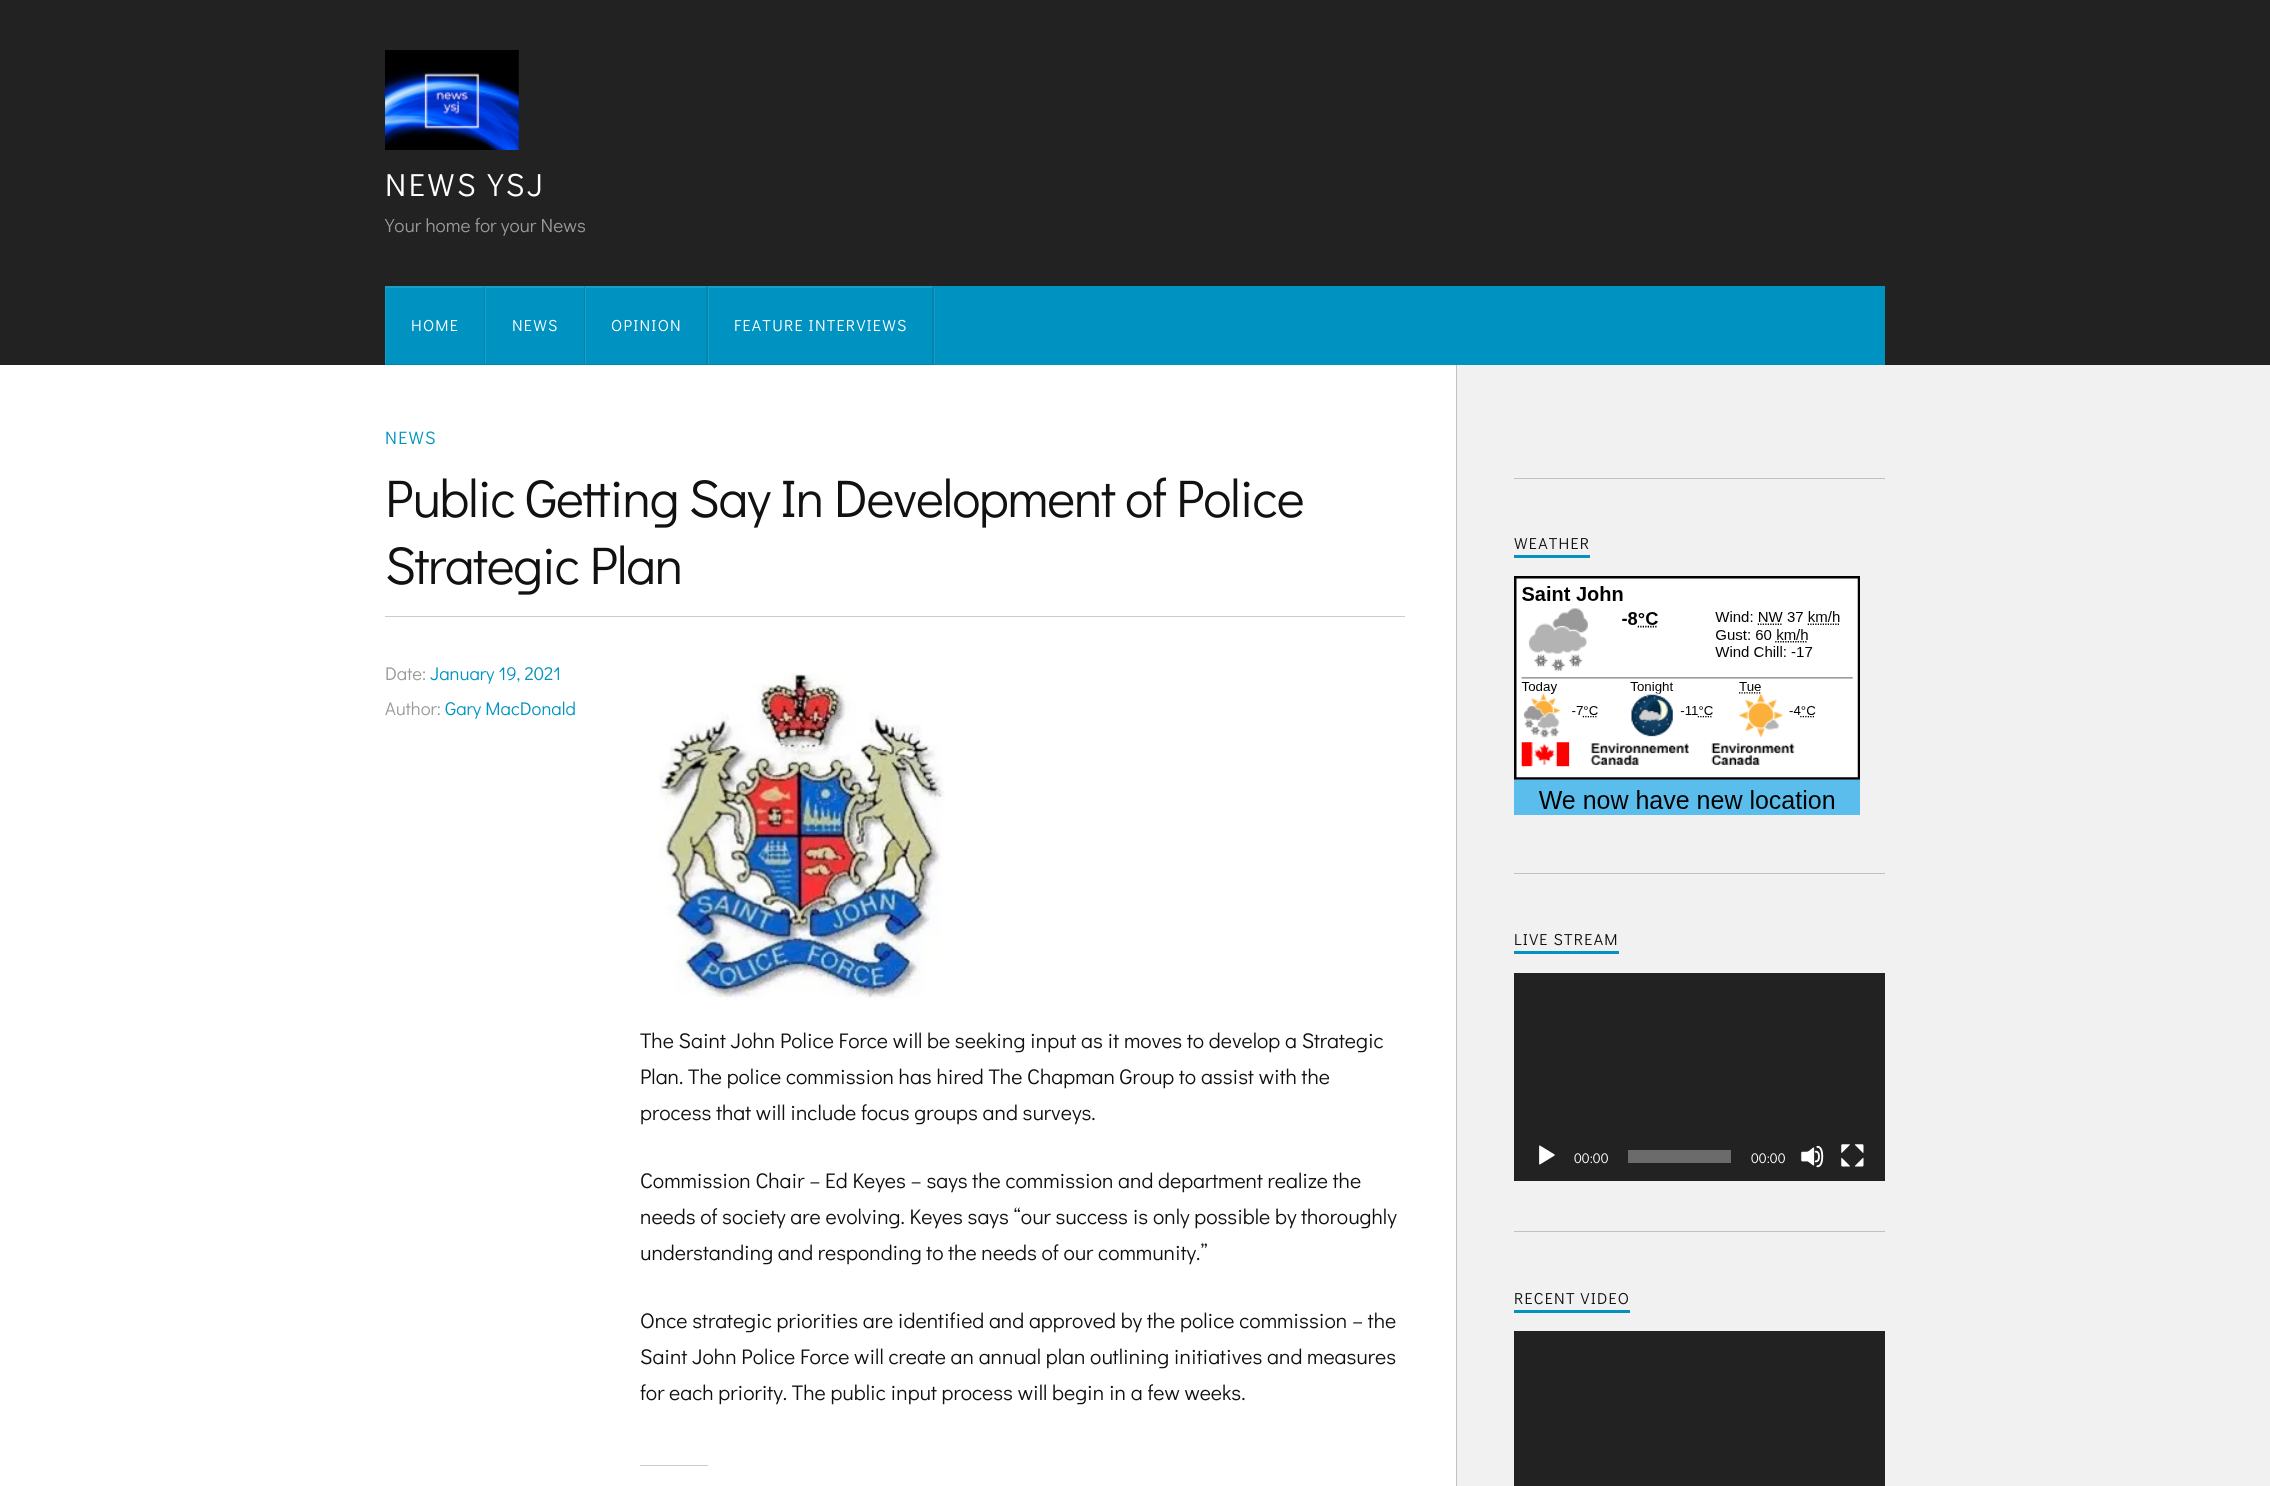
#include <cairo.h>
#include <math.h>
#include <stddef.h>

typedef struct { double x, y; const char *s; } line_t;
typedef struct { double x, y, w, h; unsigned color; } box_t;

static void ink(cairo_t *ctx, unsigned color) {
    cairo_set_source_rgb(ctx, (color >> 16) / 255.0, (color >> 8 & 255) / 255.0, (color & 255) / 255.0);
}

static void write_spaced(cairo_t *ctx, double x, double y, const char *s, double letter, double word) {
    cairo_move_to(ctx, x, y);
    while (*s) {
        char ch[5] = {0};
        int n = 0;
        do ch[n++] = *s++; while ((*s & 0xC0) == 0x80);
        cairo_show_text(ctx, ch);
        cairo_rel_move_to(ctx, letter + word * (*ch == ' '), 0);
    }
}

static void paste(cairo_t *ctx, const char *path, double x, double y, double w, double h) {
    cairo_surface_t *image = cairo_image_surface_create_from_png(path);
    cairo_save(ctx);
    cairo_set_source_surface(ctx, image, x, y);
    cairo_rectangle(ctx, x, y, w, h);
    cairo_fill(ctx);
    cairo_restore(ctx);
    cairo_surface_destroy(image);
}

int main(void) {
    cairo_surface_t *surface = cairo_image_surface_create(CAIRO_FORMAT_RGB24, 2270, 1486);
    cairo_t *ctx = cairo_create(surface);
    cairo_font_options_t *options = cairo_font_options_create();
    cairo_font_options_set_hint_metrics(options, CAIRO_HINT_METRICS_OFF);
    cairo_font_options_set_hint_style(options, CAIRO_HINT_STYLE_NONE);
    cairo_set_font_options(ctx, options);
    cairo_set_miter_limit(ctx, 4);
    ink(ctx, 0xF1F1F1);
    cairo_paint(ctx);
    ink(ctx, 0x222222);
    cairo_rectangle(ctx, 0, 0, 2270, 365);
    cairo_fill(ctx);
    paste(ctx, "media/1.png", 385, 50, 134, 100);
    cairo_select_font_face(ctx, "Didact Gothic", CAIRO_FONT_SLANT_NORMAL, CAIRO_FONT_WEIGHT_NORMAL);
    cairo_set_font_size(ctx, 32);
    ink(ctx, 0xFFFFFF);
    write_spaced(ctx, 385, 196, "NEWS YSJ", 2.5, 0);
    cairo_set_font_size(ctx, 19.1);
    ink(ctx, 0x999999);
    cairo_move_to(ctx, 385, 232);
    cairo_show_text(ctx, "Your home for your News");
    ink(ctx, 0x0093C2);
    cairo_rectangle(ctx, 385, 286, 1500, 79);
    cairo_fill(ctx);
    ink(ctx, 0x1A9EC8);
    cairo_new_path(ctx);
    cairo_move_to(ctx, 385, 286);
    cairo_line_to(ctx, 485, 286);
    cairo_line_to(ctx, 484, 288);
    cairo_line_to(ctx, 386, 288);
    cairo_close_path(ctx);
    cairo_fill(ctx);
    cairo_set_source_rgba(ctx, 0, 0, 0, 0.1);
    cairo_new_path(ctx);
    cairo_move_to(ctx, 485, 286);
    cairo_line_to(ctx, 485, 365);
    cairo_line_to(ctx, 484, 364);
    cairo_line_to(ctx, 484, 288);
    cairo_close_path(ctx);
    cairo_fill(ctx);
    cairo_new_path(ctx);
    cairo_move_to(ctx, 485, 365);
    cairo_line_to(ctx, 385, 365);
    cairo_line_to(ctx, 386, 364);
    cairo_line_to(ctx, 484, 364);
    cairo_close_path(ctx);
    cairo_fill(ctx);
    cairo_set_source_rgba(ctx, 1, 1, 1, 0.1);
    cairo_new_path(ctx);
    cairo_move_to(ctx, 385, 365);
    cairo_line_to(ctx, 385, 286);
    cairo_line_to(ctx, 386, 288);
    cairo_line_to(ctx, 386, 364);
    cairo_close_path(ctx);
    cairo_fill(ctx);
    cairo_set_font_size(ctx, 16);
    ink(ctx, 0xFFFFFF);
    write_spaced(ctx, 411, 331, "HOME", 1.25, 0);
    ink(ctx, 0x1A9EC8);
    cairo_new_path(ctx);
    cairo_move_to(ctx, 485, 286);
    cairo_line_to(ctx, 585, 286);
    cairo_line_to(ctx, 584, 288);
    cairo_line_to(ctx, 486, 288);
    cairo_close_path(ctx);
    cairo_fill(ctx);
    cairo_set_source_rgba(ctx, 0, 0, 0, 0.1);
    cairo_new_path(ctx);
    cairo_move_to(ctx, 585, 286);
    cairo_line_to(ctx, 585, 365);
    cairo_line_to(ctx, 584, 364);
    cairo_line_to(ctx, 584, 288);
    cairo_close_path(ctx);
    cairo_fill(ctx);
    cairo_new_path(ctx);
    cairo_move_to(ctx, 585, 365);
    cairo_line_to(ctx, 485, 365);
    cairo_line_to(ctx, 486, 364);
    cairo_line_to(ctx, 584, 364);
    cairo_close_path(ctx);
    cairo_fill(ctx);
    cairo_set_source_rgba(ctx, 1, 1, 1, 0.1);
    cairo_new_path(ctx);
    cairo_move_to(ctx, 485, 365);
    cairo_line_to(ctx, 485, 286);
    cairo_line_to(ctx, 486, 288);
    cairo_line_to(ctx, 486, 364);
    cairo_close_path(ctx);
    cairo_fill(ctx);
    ink(ctx, 0xFFFFFF);
    write_spaced(ctx, 512, 331, "NEWS", 1.25, 0);
    ink(ctx, 0x1A9EC8);
    cairo_new_path(ctx);
    cairo_move_to(ctx, 585, 286);
    cairo_line_to(ctx, 708, 286);
    cairo_line_to(ctx, 706, 288);
    cairo_line_to(ctx, 586, 288);
    cairo_close_path(ctx);
    cairo_fill(ctx);
    cairo_set_source_rgba(ctx, 0, 0, 0, 0.1);
    cairo_new_path(ctx);
    cairo_move_to(ctx, 708, 286);
    cairo_line_to(ctx, 708, 365);
    cairo_line_to(ctx, 706, 364);
    cairo_line_to(ctx, 706, 288);
    cairo_close_path(ctx);
    cairo_fill(ctx);
    cairo_new_path(ctx);
    cairo_move_to(ctx, 708, 365);
    cairo_line_to(ctx, 585, 365);
    cairo_line_to(ctx, 586, 364);
    cairo_line_to(ctx, 706, 364);
    cairo_close_path(ctx);
    cairo_fill(ctx);
    cairo_set_source_rgba(ctx, 1, 1, 1, 0.1);
    cairo_new_path(ctx);
    cairo_move_to(ctx, 585, 365);
    cairo_line_to(ctx, 585, 286);
    cairo_line_to(ctx, 586, 288);
    cairo_line_to(ctx, 586, 364);
    cairo_close_path(ctx);
    cairo_fill(ctx);
    ink(ctx, 0xFFFFFF);
    write_spaced(ctx, 611, 331, "OPINION", 1.25, 0);
    ink(ctx, 0x1A9EC8);
    cairo_new_path(ctx);
    cairo_move_to(ctx, 708, 286);
    cairo_line_to(ctx, 934, 286);
    cairo_line_to(ctx, 932, 288);
    cairo_line_to(ctx, 709, 288);
    cairo_close_path(ctx);
    cairo_fill(ctx);
    cairo_set_source_rgba(ctx, 0, 0, 0, 0.1);
    cairo_new_path(ctx);
    cairo_move_to(ctx, 934, 286);
    cairo_line_to(ctx, 934, 365);
    cairo_line_to(ctx, 932, 364);
    cairo_line_to(ctx, 932, 288);
    cairo_close_path(ctx);
    cairo_fill(ctx);
    cairo_new_path(ctx);
    cairo_move_to(ctx, 934, 365);
    cairo_line_to(ctx, 708, 365);
    cairo_line_to(ctx, 709, 364);
    cairo_line_to(ctx, 932, 364);
    cairo_close_path(ctx);
    cairo_fill(ctx);
    cairo_set_source_rgba(ctx, 1, 1, 1, 0.1);
    cairo_new_path(ctx);
    cairo_move_to(ctx, 708, 365);
    cairo_line_to(ctx, 708, 286);
    cairo_line_to(ctx, 709, 288);
    cairo_line_to(ctx, 709, 364);
    cairo_close_path(ctx);
    cairo_fill(ctx);
    ink(ctx, 0xFFFFFF);
    write_spaced(ctx, 734, 331, "FEATURE INTERVIEWS", 1.25, 0);
    ink(ctx, 0x1A9EC8);
    cairo_rectangle(ctx, 934, 288, 1, 76);
    cairo_fill(ctx);
    ink(ctx, 0xFFFFFF);
    cairo_rectangle(ctx, 0, 365, 1456, 1121);
    cairo_fill(ctx);
    cairo_set_font_size(ctx, 18);
    ink(ctx, 0x0093C2);
    write_spaced(ctx, 385, 444, "NEWS", 1.25, 0);
    ink(ctx, 0xCCCCCC);
    cairo_rectangle(ctx, 385, 616, 1020, 1);
    cairo_fill(ctx);
    cairo_set_font_size(ctx, 53.1);
    ink(ctx, 0x111111);
    write_spaced(ctx, 385, 517, "Public Getting Say In Development of Police", -1.25, 0);
    write_spaced(ctx, 385, 584, "Strategic Plan", -1.25, 0);
    cairo_set_font_size(ctx, 18.5);
    ink(ctx, 0x999999);
    cairo_move_to(ctx, 385, 680);
    cairo_show_text(ctx, "Date:");
    ink(ctx, 0x0093C2);
    cairo_move_to(ctx, 430, 680);
    cairo_show_text(ctx, "January 19, 2021");
    ink(ctx, 0x999999);
    cairo_move_to(ctx, 385, 715);
    cairo_show_text(ctx, "Author:");
    ink(ctx, 0x0093C2);
    cairo_move_to(ctx, 445, 715);
    cairo_show_text(ctx, "Gary MacDonald");
    paste(ctx, "media/2.png", 659, 673, 286, 327);
    cairo_set_font_size(ctx, 21.25);
    ink(ctx, 0x111111);
    {
        static const line_t items[] = {
            {640, 1048, "The Saint John Police Force will be seeking input as it moves to develop a Strategic"},
            {640, 1084, "Plan. The police commission has hired The Chapman Group to assist with the"},
            {640, 1120, "process that will include focus groups and surveys."},
            {640, 1188, "Commission Chair – Ed Keyes – says the commission and department realize the"},
            {640, 1224, "needs of society are evolving. Keyes says “our success is only possible by thoroughly"},
            {640, 1260, "understanding and responding to the needs of our community.”"},
            {640, 1328, "Once strategic priorities are identified and approved by the police commission – the"},
            {640, 1364, "Saint John Police Force will create an annual plan outlining initiatives and measures"},
            {640, 1400, "for each priority. The public input process will begin in a few weeks."},
        };
        for (size_t i = 0; i < sizeof items / sizeof *items; i++) {
            cairo_move_to(ctx, items[i].x, items[i].y);
            cairo_show_text(ctx, items[i].s);
        }
    }
    {
        static const box_t items[] = {
            {640, 1465, 68, 1, 0xCCCCCC},
            {1456, 365, 1, 1121, 0xC1C1C1},
            {1514, 478, 371, 1, 0xC1C1C1},
            {1514, 555, 76, 3, 0x0093C2},
        };
        for (size_t i = 0; i < sizeof items / sizeof *items; i++) {
            ink(ctx, items[i].color);
            cairo_rectangle(ctx, items[i].x, items[i].y, items[i].w, items[i].h);
            cairo_fill(ctx);
        }
    }
    cairo_set_font_size(ctx, 16);
    ink(ctx, 0x111111);
    write_spaced(ctx, 1514, 549, "WEATHER", 1.25, 0);
    paste(ctx, "media/3.png", 1514, 576, 346, 239);
    ink(ctx, 0xC1C1C1);
    cairo_rectangle(ctx, 1514, 873, 371, 1);
    cairo_fill(ctx);
    ink(ctx, 0x0093C2);
    cairo_rectangle(ctx, 1514, 951, 105, 3);
    cairo_fill(ctx);
    ink(ctx, 0x111111);
    write_spaced(ctx, 1514, 945, "LIVE STREAM", 1.25, 0);
    ink(ctx, 0x222222);
    cairo_rectangle(ctx, 1514, 973, 371, 208);
    cairo_fill(ctx);
    paste(ctx, "media/4.png", 1539, 1145, 16, 20);
    cairo_set_font_size(ctx, 14);
    ink(ctx, 0xFFFFFF);
    cairo_move_to(ctx, 1574, 1163);
    cairo_show_text(ctx, "00:00");
    ink(ctx, 0x6B6B6B);
    cairo_rectangle(ctx, 1628, 1150, 103, 13);
    cairo_fill(ctx);
    ink(ctx, 0xFFFFFF);
    cairo_move_to(ctx, 1751, 1163);
    cairo_show_text(ctx, "00:00");
    paste(ctx, "media/5.png", 1801, 1145, 23, 23);
    paste(ctx, "media/6.png", 1841, 1144, 23, 23);
    ink(ctx, 0xC1C1C1);
    cairo_rectangle(ctx, 1514, 1231, 371, 1);
    cairo_fill(ctx);
    ink(ctx, 0x0093C2);
    cairo_rectangle(ctx, 1514, 1310, 116, 3);
    cairo_fill(ctx);
    cairo_set_font_size(ctx, 16);
    ink(ctx, 0x111111);
    write_spaced(ctx, 1514, 1304, "RECENT VIDEO", 1.25, 0);
    ink(ctx, 0x222222);
    cairo_rectangle(ctx, 1514, 1331, 371, 155);
    cairo_fill(ctx);
    cairo_surface_write_to_png(surface, "image.png");
    cairo_font_options_destroy(options);
    cairo_destroy(ctx);
    cairo_surface_destroy(surface);
    return 0;
}
